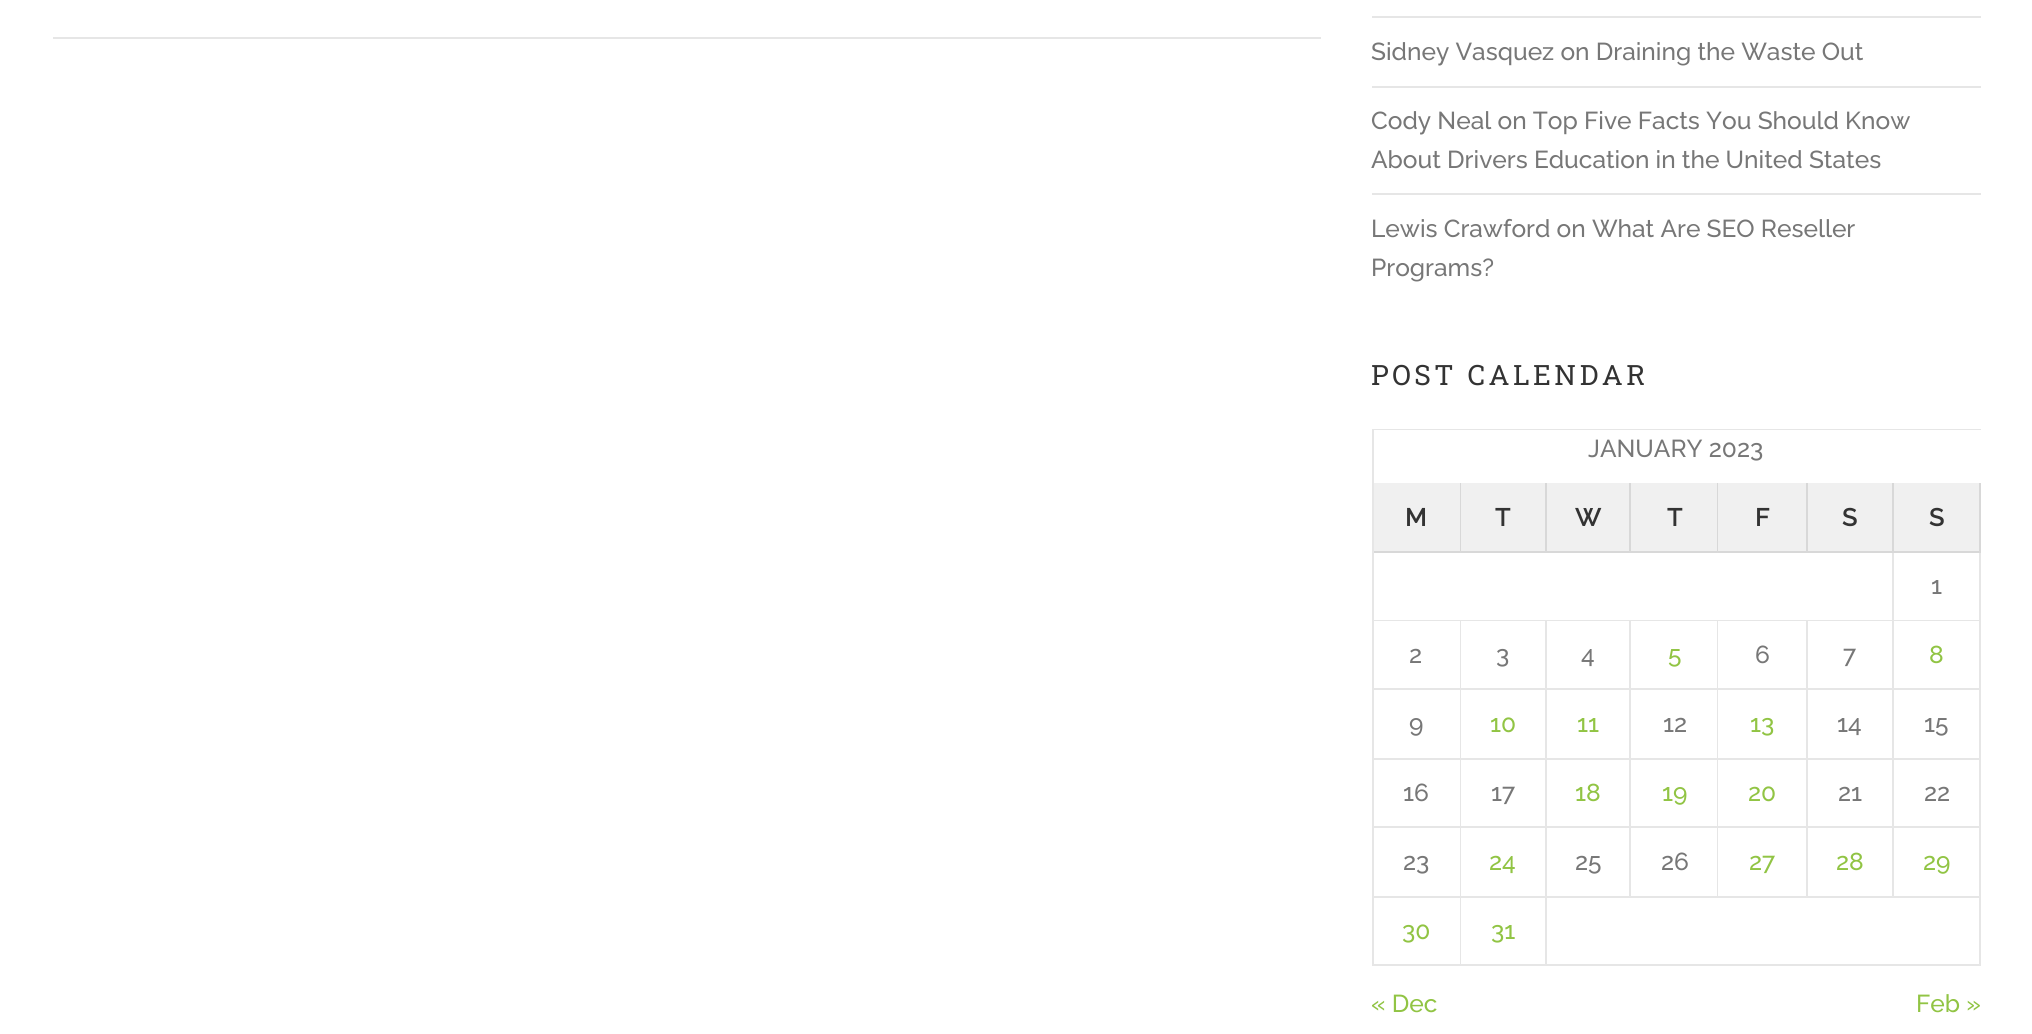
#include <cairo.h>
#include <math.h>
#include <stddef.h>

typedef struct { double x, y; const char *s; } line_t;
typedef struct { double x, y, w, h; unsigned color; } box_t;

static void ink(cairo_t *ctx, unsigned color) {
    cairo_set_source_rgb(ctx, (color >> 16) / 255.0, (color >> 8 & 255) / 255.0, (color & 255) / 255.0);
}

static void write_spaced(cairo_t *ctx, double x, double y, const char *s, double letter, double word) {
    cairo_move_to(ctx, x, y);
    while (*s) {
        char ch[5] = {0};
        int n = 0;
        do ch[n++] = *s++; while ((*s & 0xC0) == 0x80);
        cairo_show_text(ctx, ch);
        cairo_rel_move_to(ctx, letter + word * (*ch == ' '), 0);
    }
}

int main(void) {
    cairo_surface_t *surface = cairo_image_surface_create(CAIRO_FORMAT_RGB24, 2032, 1034);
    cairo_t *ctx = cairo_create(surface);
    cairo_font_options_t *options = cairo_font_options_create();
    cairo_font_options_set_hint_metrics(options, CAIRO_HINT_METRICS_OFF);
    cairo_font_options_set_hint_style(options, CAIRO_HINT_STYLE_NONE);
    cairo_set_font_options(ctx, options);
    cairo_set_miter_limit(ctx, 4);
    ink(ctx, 0xFFFFFF);
    cairo_paint(ctx);
    {
        static const box_t items[] = {
            {53, 37, 1268, 2, 0xE6E6E6},
            {1372, 16, 609, 2, 0xE6E6E6},
            {1372, 86, 609, 2, 0xE6E6E6},
        };
        for (size_t i = 0; i < sizeof items / sizeof *items; i++) {
            ink(ctx, items[i].color);
            cairo_rectangle(ctx, items[i].x, items[i].y, items[i].w, items[i].h);
            cairo_fill(ctx);
        }
    }
    cairo_select_font_face(ctx, "Raleway Thin", CAIRO_FONT_SLANT_NORMAL, CAIRO_FONT_WEIGHT_NORMAL);
    cairo_set_font_size(ctx, 24.5);
    ink(ctx, 0x777777);
    cairo_move_to(ctx, 1371, 60);
    cairo_show_text(ctx, "Sidney Vasquez on Draining the Waste Out");
    ink(ctx, 0xE6E6E6);
    cairo_rectangle(ctx, 1372, 193, 609, 2);
    cairo_fill(ctx);
    ink(ctx, 0x777777);
    {
        static const line_t items[] = {
            {1371, 129, "Cody Neal on Top Five Facts You Should Know"},
            {1371, 168, "About Drivers Education in the United States"},
            {1371, 237, "Lewis Crawford on What Are SEO Reseller"},
            {1371, 276, "Programs?"},
        };
        for (size_t i = 0; i < sizeof items / sizeof *items; i++) {
            cairo_move_to(ctx, items[i].x, items[i].y);
            cairo_show_text(ctx, items[i].s);
        }
    }
    cairo_select_font_face(ctx, "Roboto Slab", CAIRO_FONT_SLANT_NORMAL, CAIRO_FONT_WEIGHT_NORMAL);
    cairo_set_font_size(ctx, 28);
    ink(ctx, 0x333333);
    write_spaced(ctx, 1371, 385, "POST CALENDAR", 3.5, 0);
    ink(ctx, 0xE6E6E6);
    cairo_new_path(ctx);
    cairo_move_to(ctx, 1372, 429);
    cairo_line_to(ctx, 1981, 429);
    cairo_line_to(ctx, 1981, 430);
    cairo_line_to(ctx, 1374, 430);
    cairo_close_path(ctx);
    cairo_fill(ctx);
    cairo_set_source_rgba(ctx, 0, 0, 0, 0.1);
    cairo_new_path(ctx);
    cairo_move_to(ctx, 1372, 966);
    cairo_line_to(ctx, 1372, 429);
    cairo_line_to(ctx, 1374, 430);
    cairo_line_to(ctx, 1374, 966);
    cairo_close_path(ctx);
    cairo_fill(ctx);
    cairo_select_font_face(ctx, "Raleway Thin", CAIRO_FONT_SLANT_NORMAL, CAIRO_FONT_WEIGHT_NORMAL);
    cairo_set_font_size(ctx, 24.5);
    ink(ctx, 0x777777);
    cairo_move_to(ctx, 1588, 457);
    cairo_show_text(ctx, "JANUARY 2023");
    ink(ctx, 0xF0F0F0);
    cairo_rectangle(ctx, 1374, 483, 607, 70);
    cairo_fill(ctx);
    ink(ctx, 0xD8D8D8);
    cairo_new_path(ctx);
    cairo_move_to(ctx, 1461, 483);
    cairo_line_to(ctx, 1461, 553);
    cairo_line_to(ctx, 1460, 551);
    cairo_line_to(ctx, 1460, 483);
    cairo_close_path(ctx);
    cairo_fill(ctx);
    cairo_set_source_rgba(ctx, 0, 0, 0, 0.1);
    cairo_new_path(ctx);
    cairo_move_to(ctx, 1461, 553);
    cairo_line_to(ctx, 1374, 553);
    cairo_line_to(ctx, 1374, 551);
    cairo_line_to(ctx, 1460, 551);
    cairo_close_path(ctx);
    cairo_fill(ctx);
    cairo_select_font_face(ctx, "Raleway", CAIRO_FONT_SLANT_NORMAL, CAIRO_FONT_WEIGHT_BOLD);
    ink(ctx, 0x333333);
    cairo_move_to(ctx, 1405, 526);
    cairo_show_text(ctx, "M");
    ink(ctx, 0xD8D8D8);
    cairo_new_path(ctx);
    cairo_move_to(ctx, 1547, 483);
    cairo_line_to(ctx, 1547, 553);
    cairo_line_to(ctx, 1545, 551);
    cairo_line_to(ctx, 1545, 483);
    cairo_close_path(ctx);
    cairo_fill(ctx);
    cairo_set_source_rgba(ctx, 0, 0, 0, 0.1);
    cairo_new_path(ctx);
    cairo_move_to(ctx, 1547, 553);
    cairo_line_to(ctx, 1461, 553);
    cairo_line_to(ctx, 1461, 551);
    cairo_line_to(ctx, 1545, 551);
    cairo_close_path(ctx);
    cairo_fill(ctx);
    ink(ctx, 0x333333);
    cairo_move_to(ctx, 1495, 526);
    cairo_show_text(ctx, "T");
    ink(ctx, 0xD8D8D8);
    cairo_new_path(ctx);
    cairo_move_to(ctx, 1631, 483);
    cairo_line_to(ctx, 1631, 553);
    cairo_line_to(ctx, 1629, 551);
    cairo_line_to(ctx, 1629, 483);
    cairo_close_path(ctx);
    cairo_fill(ctx);
    cairo_set_source_rgba(ctx, 0, 0, 0, 0.1);
    cairo_new_path(ctx);
    cairo_move_to(ctx, 1631, 553);
    cairo_line_to(ctx, 1547, 553);
    cairo_line_to(ctx, 1547, 551);
    cairo_line_to(ctx, 1629, 551);
    cairo_close_path(ctx);
    cairo_fill(ctx);
    ink(ctx, 0x333333);
    cairo_move_to(ctx, 1575, 526);
    cairo_show_text(ctx, "W");
    ink(ctx, 0xD8D8D8);
    cairo_new_path(ctx);
    cairo_move_to(ctx, 1718, 483);
    cairo_line_to(ctx, 1718, 553);
    cairo_line_to(ctx, 1717, 551);
    cairo_line_to(ctx, 1717, 483);
    cairo_close_path(ctx);
    cairo_fill(ctx);
    cairo_set_source_rgba(ctx, 0, 0, 0, 0.1);
    cairo_new_path(ctx);
    cairo_move_to(ctx, 1718, 553);
    cairo_line_to(ctx, 1631, 553);
    cairo_line_to(ctx, 1631, 551);
    cairo_line_to(ctx, 1717, 551);
    cairo_close_path(ctx);
    cairo_fill(ctx);
    ink(ctx, 0x333333);
    cairo_move_to(ctx, 1667, 526);
    cairo_show_text(ctx, "T");
    ink(ctx, 0xD8D8D8);
    cairo_new_path(ctx);
    cairo_move_to(ctx, 1808, 483);
    cairo_line_to(ctx, 1808, 553);
    cairo_line_to(ctx, 1806, 551);
    cairo_line_to(ctx, 1806, 483);
    cairo_close_path(ctx);
    cairo_fill(ctx);
    cairo_set_source_rgba(ctx, 0, 0, 0, 0.1);
    cairo_new_path(ctx);
    cairo_move_to(ctx, 1808, 553);
    cairo_line_to(ctx, 1718, 553);
    cairo_line_to(ctx, 1718, 551);
    cairo_line_to(ctx, 1806, 551);
    cairo_close_path(ctx);
    cairo_fill(ctx);
    ink(ctx, 0x333333);
    cairo_move_to(ctx, 1755, 526);
    cairo_show_text(ctx, "F");
    ink(ctx, 0xD8D8D8);
    cairo_new_path(ctx);
    cairo_move_to(ctx, 1894, 483);
    cairo_line_to(ctx, 1894, 553);
    cairo_line_to(ctx, 1892, 551);
    cairo_line_to(ctx, 1892, 483);
    cairo_close_path(ctx);
    cairo_fill(ctx);
    cairo_set_source_rgba(ctx, 0, 0, 0, 0.1);
    cairo_new_path(ctx);
    cairo_move_to(ctx, 1894, 553);
    cairo_line_to(ctx, 1808, 553);
    cairo_line_to(ctx, 1808, 551);
    cairo_line_to(ctx, 1892, 551);
    cairo_close_path(ctx);
    cairo_fill(ctx);
    ink(ctx, 0x333333);
    cairo_move_to(ctx, 1842, 526);
    cairo_show_text(ctx, "S");
    ink(ctx, 0xD8D8D8);
    cairo_new_path(ctx);
    cairo_move_to(ctx, 1981, 483);
    cairo_line_to(ctx, 1981, 553);
    cairo_line_to(ctx, 1979, 551);
    cairo_line_to(ctx, 1979, 483);
    cairo_close_path(ctx);
    cairo_fill(ctx);
    cairo_set_source_rgba(ctx, 0, 0, 0, 0.1);
    cairo_new_path(ctx);
    cairo_move_to(ctx, 1981, 553);
    cairo_line_to(ctx, 1894, 553);
    cairo_line_to(ctx, 1894, 551);
    cairo_line_to(ctx, 1979, 551);
    cairo_close_path(ctx);
    cairo_fill(ctx);
    ink(ctx, 0x333333);
    cairo_move_to(ctx, 1929, 526);
    cairo_show_text(ctx, "S");
    ink(ctx, 0xE6E6E6);
    cairo_new_path(ctx);
    cairo_move_to(ctx, 1894, 553);
    cairo_line_to(ctx, 1894, 621);
    cairo_line_to(ctx, 1892, 620);
    cairo_line_to(ctx, 1892, 553);
    cairo_close_path(ctx);
    cairo_fill(ctx);
    cairo_set_source_rgba(ctx, 0, 0, 0, 0.1);
    cairo_new_path(ctx);
    cairo_move_to(ctx, 1894, 621);
    cairo_line_to(ctx, 1374, 621);
    cairo_line_to(ctx, 1374, 620);
    cairo_line_to(ctx, 1892, 620);
    cairo_close_path(ctx);
    cairo_fill(ctx);
    ink(ctx, 0xE6E6E6);
    cairo_new_path(ctx);
    cairo_move_to(ctx, 1981, 553);
    cairo_line_to(ctx, 1981, 621);
    cairo_line_to(ctx, 1979, 620);
    cairo_line_to(ctx, 1979, 553);
    cairo_close_path(ctx);
    cairo_fill(ctx);
    cairo_set_source_rgba(ctx, 0, 0, 0, 0.1);
    cairo_new_path(ctx);
    cairo_move_to(ctx, 1981, 621);
    cairo_line_to(ctx, 1894, 621);
    cairo_line_to(ctx, 1894, 620);
    cairo_line_to(ctx, 1979, 620);
    cairo_close_path(ctx);
    cairo_fill(ctx);
    cairo_select_font_face(ctx, "Raleway Thin", CAIRO_FONT_SLANT_NORMAL, CAIRO_FONT_WEIGHT_NORMAL);
    ink(ctx, 0x777777);
    cairo_move_to(ctx, 1931, 594);
    cairo_show_text(ctx, "1");
    ink(ctx, 0xE6E6E6);
    cairo_new_path(ctx);
    cairo_move_to(ctx, 1461, 621);
    cairo_line_to(ctx, 1461, 690);
    cairo_line_to(ctx, 1460, 688);
    cairo_line_to(ctx, 1460, 621);
    cairo_close_path(ctx);
    cairo_fill(ctx);
    cairo_set_source_rgba(ctx, 0, 0, 0, 0.1);
    cairo_new_path(ctx);
    cairo_move_to(ctx, 1461, 690);
    cairo_line_to(ctx, 1374, 690);
    cairo_line_to(ctx, 1374, 688);
    cairo_line_to(ctx, 1460, 688);
    cairo_close_path(ctx);
    cairo_fill(ctx);
    ink(ctx, 0x777777);
    cairo_move_to(ctx, 1409, 663);
    cairo_show_text(ctx, "2");
    ink(ctx, 0xE6E6E6);
    cairo_new_path(ctx);
    cairo_move_to(ctx, 1547, 621);
    cairo_line_to(ctx, 1547, 690);
    cairo_line_to(ctx, 1545, 688);
    cairo_line_to(ctx, 1545, 621);
    cairo_close_path(ctx);
    cairo_fill(ctx);
    cairo_set_source_rgba(ctx, 0, 0, 0, 0.1);
    cairo_new_path(ctx);
    cairo_move_to(ctx, 1547, 690);
    cairo_line_to(ctx, 1461, 690);
    cairo_line_to(ctx, 1461, 688);
    cairo_line_to(ctx, 1545, 688);
    cairo_close_path(ctx);
    cairo_fill(ctx);
    ink(ctx, 0x777777);
    cairo_move_to(ctx, 1496, 663);
    cairo_show_text(ctx, "3");
    ink(ctx, 0xE6E6E6);
    cairo_new_path(ctx);
    cairo_move_to(ctx, 1631, 621);
    cairo_line_to(ctx, 1631, 690);
    cairo_line_to(ctx, 1629, 688);
    cairo_line_to(ctx, 1629, 621);
    cairo_close_path(ctx);
    cairo_fill(ctx);
    cairo_set_source_rgba(ctx, 0, 0, 0, 0.1);
    cairo_new_path(ctx);
    cairo_move_to(ctx, 1631, 690);
    cairo_line_to(ctx, 1547, 690);
    cairo_line_to(ctx, 1547, 688);
    cairo_line_to(ctx, 1629, 688);
    cairo_close_path(ctx);
    cairo_fill(ctx);
    ink(ctx, 0x777777);
    cairo_move_to(ctx, 1581, 663);
    cairo_show_text(ctx, "4");
    ink(ctx, 0xE6E6E6);
    cairo_new_path(ctx);
    cairo_move_to(ctx, 1718, 621);
    cairo_line_to(ctx, 1718, 690);
    cairo_line_to(ctx, 1717, 688);
    cairo_line_to(ctx, 1717, 621);
    cairo_close_path(ctx);
    cairo_fill(ctx);
    cairo_set_source_rgba(ctx, 0, 0, 0, 0.1);
    cairo_new_path(ctx);
    cairo_move_to(ctx, 1718, 690);
    cairo_line_to(ctx, 1631, 690);
    cairo_line_to(ctx, 1631, 688);
    cairo_line_to(ctx, 1717, 688);
    cairo_close_path(ctx);
    cairo_fill(ctx);
    ink(ctx, 0x91C444);
    cairo_move_to(ctx, 1668, 663);
    cairo_show_text(ctx, "5");
    ink(ctx, 0xE6E6E6);
    cairo_new_path(ctx);
    cairo_move_to(ctx, 1808, 621);
    cairo_line_to(ctx, 1808, 690);
    cairo_line_to(ctx, 1806, 688);
    cairo_line_to(ctx, 1806, 621);
    cairo_close_path(ctx);
    cairo_fill(ctx);
    cairo_set_source_rgba(ctx, 0, 0, 0, 0.1);
    cairo_new_path(ctx);
    cairo_move_to(ctx, 1808, 690);
    cairo_line_to(ctx, 1718, 690);
    cairo_line_to(ctx, 1718, 688);
    cairo_line_to(ctx, 1806, 688);
    cairo_close_path(ctx);
    cairo_fill(ctx);
    ink(ctx, 0x777777);
    cairo_move_to(ctx, 1755, 663);
    cairo_show_text(ctx, "6");
    ink(ctx, 0xE6E6E6);
    cairo_new_path(ctx);
    cairo_move_to(ctx, 1894, 621);
    cairo_line_to(ctx, 1894, 690);
    cairo_line_to(ctx, 1892, 688);
    cairo_line_to(ctx, 1892, 621);
    cairo_close_path(ctx);
    cairo_fill(ctx);
    cairo_set_source_rgba(ctx, 0, 0, 0, 0.1);
    cairo_new_path(ctx);
    cairo_move_to(ctx, 1894, 690);
    cairo_line_to(ctx, 1808, 690);
    cairo_line_to(ctx, 1808, 688);
    cairo_line_to(ctx, 1892, 688);
    cairo_close_path(ctx);
    cairo_fill(ctx);
    ink(ctx, 0x777777);
    cairo_move_to(ctx, 1843, 663);
    cairo_show_text(ctx, "7");
    ink(ctx, 0xE6E6E6);
    cairo_new_path(ctx);
    cairo_move_to(ctx, 1981, 621);
    cairo_line_to(ctx, 1981, 690);
    cairo_line_to(ctx, 1979, 688);
    cairo_line_to(ctx, 1979, 621);
    cairo_close_path(ctx);
    cairo_fill(ctx);
    cairo_set_source_rgba(ctx, 0, 0, 0, 0.1);
    cairo_new_path(ctx);
    cairo_move_to(ctx, 1981, 690);
    cairo_line_to(ctx, 1894, 690);
    cairo_line_to(ctx, 1894, 688);
    cairo_line_to(ctx, 1979, 688);
    cairo_close_path(ctx);
    cairo_fill(ctx);
    ink(ctx, 0x91C444);
    cairo_move_to(ctx, 1929, 663);
    cairo_show_text(ctx, "8");
    ink(ctx, 0xE6E6E6);
    cairo_new_path(ctx);
    cairo_move_to(ctx, 1461, 690);
    cairo_line_to(ctx, 1461, 760);
    cairo_line_to(ctx, 1460, 758);
    cairo_line_to(ctx, 1460, 690);
    cairo_close_path(ctx);
    cairo_fill(ctx);
    cairo_set_source_rgba(ctx, 0, 0, 0, 0.1);
    cairo_new_path(ctx);
    cairo_move_to(ctx, 1461, 760);
    cairo_line_to(ctx, 1374, 760);
    cairo_line_to(ctx, 1374, 758);
    cairo_line_to(ctx, 1460, 758);
    cairo_close_path(ctx);
    cairo_fill(ctx);
    ink(ctx, 0x777777);
    cairo_move_to(ctx, 1409, 732);
    cairo_show_text(ctx, "9");
    ink(ctx, 0xE6E6E6);
    cairo_new_path(ctx);
    cairo_move_to(ctx, 1547, 690);
    cairo_line_to(ctx, 1547, 760);
    cairo_line_to(ctx, 1545, 758);
    cairo_line_to(ctx, 1545, 690);
    cairo_close_path(ctx);
    cairo_fill(ctx);
    cairo_set_source_rgba(ctx, 0, 0, 0, 0.1);
    cairo_new_path(ctx);
    cairo_move_to(ctx, 1547, 760);
    cairo_line_to(ctx, 1461, 760);
    cairo_line_to(ctx, 1461, 758);
    cairo_line_to(ctx, 1545, 758);
    cairo_close_path(ctx);
    cairo_fill(ctx);
    ink(ctx, 0x91C444);
    cairo_move_to(ctx, 1490, 732);
    cairo_show_text(ctx, "10");
    ink(ctx, 0xE6E6E6);
    cairo_new_path(ctx);
    cairo_move_to(ctx, 1631, 690);
    cairo_line_to(ctx, 1631, 760);
    cairo_line_to(ctx, 1629, 758);
    cairo_line_to(ctx, 1629, 690);
    cairo_close_path(ctx);
    cairo_fill(ctx);
    cairo_set_source_rgba(ctx, 0, 0, 0, 0.1);
    cairo_new_path(ctx);
    cairo_move_to(ctx, 1631, 760);
    cairo_line_to(ctx, 1547, 760);
    cairo_line_to(ctx, 1547, 758);
    cairo_line_to(ctx, 1629, 758);
    cairo_close_path(ctx);
    cairo_fill(ctx);
    ink(ctx, 0x91C444);
    cairo_move_to(ctx, 1577, 732);
    cairo_show_text(ctx, "11");
    ink(ctx, 0xE6E6E6);
    cairo_new_path(ctx);
    cairo_move_to(ctx, 1718, 690);
    cairo_line_to(ctx, 1718, 760);
    cairo_line_to(ctx, 1717, 758);
    cairo_line_to(ctx, 1717, 690);
    cairo_close_path(ctx);
    cairo_fill(ctx);
    cairo_set_source_rgba(ctx, 0, 0, 0, 0.1);
    cairo_new_path(ctx);
    cairo_move_to(ctx, 1718, 760);
    cairo_line_to(ctx, 1631, 760);
    cairo_line_to(ctx, 1631, 758);
    cairo_line_to(ctx, 1717, 758);
    cairo_close_path(ctx);
    cairo_fill(ctx);
    ink(ctx, 0x777777);
    cairo_move_to(ctx, 1663, 732);
    cairo_show_text(ctx, "12");
    ink(ctx, 0xE6E6E6);
    cairo_new_path(ctx);
    cairo_move_to(ctx, 1808, 690);
    cairo_line_to(ctx, 1808, 760);
    cairo_line_to(ctx, 1806, 758);
    cairo_line_to(ctx, 1806, 690);
    cairo_close_path(ctx);
    cairo_fill(ctx);
    cairo_set_source_rgba(ctx, 0, 0, 0, 0.1);
    cairo_new_path(ctx);
    cairo_move_to(ctx, 1808, 760);
    cairo_line_to(ctx, 1718, 760);
    cairo_line_to(ctx, 1718, 758);
    cairo_line_to(ctx, 1806, 758);
    cairo_close_path(ctx);
    cairo_fill(ctx);
    ink(ctx, 0x91C444);
    cairo_move_to(ctx, 1750, 732);
    cairo_show_text(ctx, "13");
    ink(ctx, 0xE6E6E6);
    cairo_new_path(ctx);
    cairo_move_to(ctx, 1894, 690);
    cairo_line_to(ctx, 1894, 760);
    cairo_line_to(ctx, 1892, 758);
    cairo_line_to(ctx, 1892, 690);
    cairo_close_path(ctx);
    cairo_fill(ctx);
    cairo_set_source_rgba(ctx, 0, 0, 0, 0.1);
    cairo_new_path(ctx);
    cairo_move_to(ctx, 1894, 760);
    cairo_line_to(ctx, 1808, 760);
    cairo_line_to(ctx, 1808, 758);
    cairo_line_to(ctx, 1892, 758);
    cairo_close_path(ctx);
    cairo_fill(ctx);
    ink(ctx, 0x777777);
    cairo_move_to(ctx, 1837, 732);
    cairo_show_text(ctx, "14");
    ink(ctx, 0xE6E6E6);
    cairo_new_path(ctx);
    cairo_move_to(ctx, 1981, 690);
    cairo_line_to(ctx, 1981, 760);
    cairo_line_to(ctx, 1979, 758);
    cairo_line_to(ctx, 1979, 690);
    cairo_close_path(ctx);
    cairo_fill(ctx);
    cairo_set_source_rgba(ctx, 0, 0, 0, 0.1);
    cairo_new_path(ctx);
    cairo_move_to(ctx, 1981, 760);
    cairo_line_to(ctx, 1894, 760);
    cairo_line_to(ctx, 1894, 758);
    cairo_line_to(ctx, 1979, 758);
    cairo_close_path(ctx);
    cairo_fill(ctx);
    ink(ctx, 0x777777);
    cairo_move_to(ctx, 1924, 732);
    cairo_show_text(ctx, "15");
    ink(ctx, 0xE6E6E6);
    cairo_new_path(ctx);
    cairo_move_to(ctx, 1461, 760);
    cairo_line_to(ctx, 1461, 828);
    cairo_line_to(ctx, 1460, 826);
    cairo_line_to(ctx, 1460, 760);
    cairo_close_path(ctx);
    cairo_fill(ctx);
    cairo_set_source_rgba(ctx, 0, 0, 0, 0.1);
    cairo_new_path(ctx);
    cairo_move_to(ctx, 1461, 828);
    cairo_line_to(ctx, 1374, 828);
    cairo_line_to(ctx, 1374, 826);
    cairo_line_to(ctx, 1460, 826);
    cairo_close_path(ctx);
    cairo_fill(ctx);
    ink(ctx, 0x777777);
    cairo_move_to(ctx, 1403, 801);
    cairo_show_text(ctx, "16");
    ink(ctx, 0xE6E6E6);
    cairo_new_path(ctx);
    cairo_move_to(ctx, 1547, 760);
    cairo_line_to(ctx, 1547, 828);
    cairo_line_to(ctx, 1545, 826);
    cairo_line_to(ctx, 1545, 760);
    cairo_close_path(ctx);
    cairo_fill(ctx);
    cairo_set_source_rgba(ctx, 0, 0, 0, 0.1);
    cairo_new_path(ctx);
    cairo_move_to(ctx, 1547, 828);
    cairo_line_to(ctx, 1461, 828);
    cairo_line_to(ctx, 1461, 826);
    cairo_line_to(ctx, 1545, 826);
    cairo_close_path(ctx);
    cairo_fill(ctx);
    ink(ctx, 0x777777);
    cairo_move_to(ctx, 1491, 801);
    cairo_show_text(ctx, "17");
    ink(ctx, 0xE6E6E6);
    cairo_new_path(ctx);
    cairo_move_to(ctx, 1631, 760);
    cairo_line_to(ctx, 1631, 828);
    cairo_line_to(ctx, 1629, 826);
    cairo_line_to(ctx, 1629, 760);
    cairo_close_path(ctx);
    cairo_fill(ctx);
    cairo_set_source_rgba(ctx, 0, 0, 0, 0.1);
    cairo_new_path(ctx);
    cairo_move_to(ctx, 1631, 828);
    cairo_line_to(ctx, 1547, 828);
    cairo_line_to(ctx, 1547, 826);
    cairo_line_to(ctx, 1629, 826);
    cairo_close_path(ctx);
    cairo_fill(ctx);
    ink(ctx, 0x91C444);
    cairo_move_to(ctx, 1575, 801);
    cairo_show_text(ctx, "18");
    ink(ctx, 0xE6E6E6);
    cairo_new_path(ctx);
    cairo_move_to(ctx, 1718, 760);
    cairo_line_to(ctx, 1718, 828);
    cairo_line_to(ctx, 1717, 826);
    cairo_line_to(ctx, 1717, 760);
    cairo_close_path(ctx);
    cairo_fill(ctx);
    cairo_set_source_rgba(ctx, 0, 0, 0, 0.1);
    cairo_new_path(ctx);
    cairo_move_to(ctx, 1718, 828);
    cairo_line_to(ctx, 1631, 828);
    cairo_line_to(ctx, 1631, 826);
    cairo_line_to(ctx, 1717, 826);
    cairo_close_path(ctx);
    cairo_fill(ctx);
    ink(ctx, 0x91C444);
    cairo_move_to(ctx, 1662, 801);
    cairo_show_text(ctx, "19");
    ink(ctx, 0xE6E6E6);
    cairo_new_path(ctx);
    cairo_move_to(ctx, 1808, 760);
    cairo_line_to(ctx, 1808, 828);
    cairo_line_to(ctx, 1806, 826);
    cairo_line_to(ctx, 1806, 760);
    cairo_close_path(ctx);
    cairo_fill(ctx);
    cairo_set_source_rgba(ctx, 0, 0, 0, 0.1);
    cairo_new_path(ctx);
    cairo_move_to(ctx, 1808, 828);
    cairo_line_to(ctx, 1718, 828);
    cairo_line_to(ctx, 1718, 826);
    cairo_line_to(ctx, 1806, 826);
    cairo_close_path(ctx);
    cairo_fill(ctx);
    ink(ctx, 0x91C444);
    cairo_move_to(ctx, 1748, 801);
    cairo_show_text(ctx, "20");
    ink(ctx, 0xE6E6E6);
    cairo_new_path(ctx);
    cairo_move_to(ctx, 1894, 760);
    cairo_line_to(ctx, 1894, 828);
    cairo_line_to(ctx, 1892, 826);
    cairo_line_to(ctx, 1892, 760);
    cairo_close_path(ctx);
    cairo_fill(ctx);
    cairo_set_source_rgba(ctx, 0, 0, 0, 0.1);
    cairo_new_path(ctx);
    cairo_move_to(ctx, 1894, 828);
    cairo_line_to(ctx, 1808, 828);
    cairo_line_to(ctx, 1808, 826);
    cairo_line_to(ctx, 1892, 826);
    cairo_close_path(ctx);
    cairo_fill(ctx);
    ink(ctx, 0x777777);
    cairo_move_to(ctx, 1838, 801);
    cairo_show_text(ctx, "21");
    ink(ctx, 0xE6E6E6);
    cairo_new_path(ctx);
    cairo_move_to(ctx, 1981, 760);
    cairo_line_to(ctx, 1981, 828);
    cairo_line_to(ctx, 1979, 826);
    cairo_line_to(ctx, 1979, 760);
    cairo_close_path(ctx);
    cairo_fill(ctx);
    cairo_set_source_rgba(ctx, 0, 0, 0, 0.1);
    cairo_new_path(ctx);
    cairo_move_to(ctx, 1981, 828);
    cairo_line_to(ctx, 1894, 828);
    cairo_line_to(ctx, 1894, 826);
    cairo_line_to(ctx, 1979, 826);
    cairo_close_path(ctx);
    cairo_fill(ctx);
    ink(ctx, 0x777777);
    cairo_move_to(ctx, 1924, 801);
    cairo_show_text(ctx, "22");
    ink(ctx, 0xE6E6E6);
    cairo_new_path(ctx);
    cairo_move_to(ctx, 1461, 828);
    cairo_line_to(ctx, 1461, 898);
    cairo_line_to(ctx, 1460, 896);
    cairo_line_to(ctx, 1460, 828);
    cairo_close_path(ctx);
    cairo_fill(ctx);
    cairo_set_source_rgba(ctx, 0, 0, 0, 0.1);
    cairo_new_path(ctx);
    cairo_move_to(ctx, 1461, 898);
    cairo_line_to(ctx, 1374, 898);
    cairo_line_to(ctx, 1374, 896);
    cairo_line_to(ctx, 1460, 896);
    cairo_close_path(ctx);
    cairo_fill(ctx);
    ink(ctx, 0x777777);
    cairo_move_to(ctx, 1403, 870);
    cairo_show_text(ctx, "23");
    ink(ctx, 0xE6E6E6);
    cairo_new_path(ctx);
    cairo_move_to(ctx, 1547, 828);
    cairo_line_to(ctx, 1547, 898);
    cairo_line_to(ctx, 1545, 896);
    cairo_line_to(ctx, 1545, 828);
    cairo_close_path(ctx);
    cairo_fill(ctx);
    cairo_set_source_rgba(ctx, 0, 0, 0, 0.1);
    cairo_new_path(ctx);
    cairo_move_to(ctx, 1547, 898);
    cairo_line_to(ctx, 1461, 898);
    cairo_line_to(ctx, 1461, 896);
    cairo_line_to(ctx, 1545, 896);
    cairo_close_path(ctx);
    cairo_fill(ctx);
    ink(ctx, 0x91C444);
    cairo_move_to(ctx, 1489, 870);
    cairo_show_text(ctx, "24");
    ink(ctx, 0xE6E6E6);
    cairo_new_path(ctx);
    cairo_move_to(ctx, 1631, 828);
    cairo_line_to(ctx, 1631, 898);
    cairo_line_to(ctx, 1629, 896);
    cairo_line_to(ctx, 1629, 828);
    cairo_close_path(ctx);
    cairo_fill(ctx);
    cairo_set_source_rgba(ctx, 0, 0, 0, 0.1);
    cairo_new_path(ctx);
    cairo_move_to(ctx, 1631, 898);
    cairo_line_to(ctx, 1547, 898);
    cairo_line_to(ctx, 1547, 896);
    cairo_line_to(ctx, 1629, 896);
    cairo_close_path(ctx);
    cairo_fill(ctx);
    ink(ctx, 0x777777);
    cairo_move_to(ctx, 1575, 870);
    cairo_show_text(ctx, "25");
    ink(ctx, 0xE6E6E6);
    cairo_new_path(ctx);
    cairo_move_to(ctx, 1718, 828);
    cairo_line_to(ctx, 1718, 898);
    cairo_line_to(ctx, 1717, 896);
    cairo_line_to(ctx, 1717, 828);
    cairo_close_path(ctx);
    cairo_fill(ctx);
    cairo_set_source_rgba(ctx, 0, 0, 0, 0.1);
    cairo_new_path(ctx);
    cairo_move_to(ctx, 1718, 898);
    cairo_line_to(ctx, 1631, 898);
    cairo_line_to(ctx, 1631, 896);
    cairo_line_to(ctx, 1717, 896);
    cairo_close_path(ctx);
    cairo_fill(ctx);
    ink(ctx, 0x777777);
    cairo_move_to(ctx, 1661, 870);
    cairo_show_text(ctx, "26");
    ink(ctx, 0xE6E6E6);
    cairo_new_path(ctx);
    cairo_move_to(ctx, 1808, 828);
    cairo_line_to(ctx, 1808, 898);
    cairo_line_to(ctx, 1806, 896);
    cairo_line_to(ctx, 1806, 828);
    cairo_close_path(ctx);
    cairo_fill(ctx);
    cairo_set_source_rgba(ctx, 0, 0, 0, 0.1);
    cairo_new_path(ctx);
    cairo_move_to(ctx, 1808, 898);
    cairo_line_to(ctx, 1718, 898);
    cairo_line_to(ctx, 1718, 896);
    cairo_line_to(ctx, 1806, 896);
    cairo_close_path(ctx);
    cairo_fill(ctx);
    ink(ctx, 0x91C444);
    cairo_move_to(ctx, 1749, 870);
    cairo_show_text(ctx, "27");
    ink(ctx, 0xE6E6E6);
    cairo_new_path(ctx);
    cairo_move_to(ctx, 1894, 828);
    cairo_line_to(ctx, 1894, 898);
    cairo_line_to(ctx, 1892, 896);
    cairo_line_to(ctx, 1892, 828);
    cairo_close_path(ctx);
    cairo_fill(ctx);
    cairo_set_source_rgba(ctx, 0, 0, 0, 0.1);
    cairo_new_path(ctx);
    cairo_move_to(ctx, 1894, 898);
    cairo_line_to(ctx, 1808, 898);
    cairo_line_to(ctx, 1808, 896);
    cairo_line_to(ctx, 1892, 896);
    cairo_close_path(ctx);
    cairo_fill(ctx);
    ink(ctx, 0x91C444);
    cairo_move_to(ctx, 1836, 870);
    cairo_show_text(ctx, "28");
    ink(ctx, 0xE6E6E6);
    cairo_new_path(ctx);
    cairo_move_to(ctx, 1981, 828);
    cairo_line_to(ctx, 1981, 898);
    cairo_line_to(ctx, 1979, 896);
    cairo_line_to(ctx, 1979, 828);
    cairo_close_path(ctx);
    cairo_fill(ctx);
    cairo_set_source_rgba(ctx, 0, 0, 0, 0.1);
    cairo_new_path(ctx);
    cairo_move_to(ctx, 1981, 898);
    cairo_line_to(ctx, 1894, 898);
    cairo_line_to(ctx, 1894, 896);
    cairo_line_to(ctx, 1979, 896);
    cairo_close_path(ctx);
    cairo_fill(ctx);
    ink(ctx, 0x91C444);
    cairo_move_to(ctx, 1923, 870);
    cairo_show_text(ctx, "29");
    ink(ctx, 0xE6E6E6);
    cairo_new_path(ctx);
    cairo_move_to(ctx, 1461, 898);
    cairo_line_to(ctx, 1461, 966);
    cairo_line_to(ctx, 1460, 964);
    cairo_line_to(ctx, 1460, 898);
    cairo_close_path(ctx);
    cairo_fill(ctx);
    cairo_set_source_rgba(ctx, 0, 0, 0, 0.1);
    cairo_new_path(ctx);
    cairo_move_to(ctx, 1461, 966);
    cairo_line_to(ctx, 1374, 966);
    cairo_line_to(ctx, 1374, 964);
    cairo_line_to(ctx, 1460, 964);
    cairo_close_path(ctx);
    cairo_fill(ctx);
    ink(ctx, 0x91C444);
    cairo_move_to(ctx, 1402, 939);
    cairo_show_text(ctx, "30");
    ink(ctx, 0xE6E6E6);
    cairo_new_path(ctx);
    cairo_move_to(ctx, 1547, 898);
    cairo_line_to(ctx, 1547, 966);
    cairo_line_to(ctx, 1545, 964);
    cairo_line_to(ctx, 1545, 898);
    cairo_close_path(ctx);
    cairo_fill(ctx);
    cairo_set_source_rgba(ctx, 0, 0, 0, 0.1);
    cairo_new_path(ctx);
    cairo_move_to(ctx, 1547, 966);
    cairo_line_to(ctx, 1461, 966);
    cairo_line_to(ctx, 1461, 964);
    cairo_line_to(ctx, 1545, 964);
    cairo_close_path(ctx);
    cairo_fill(ctx);
    ink(ctx, 0x91C444);
    cairo_move_to(ctx, 1491, 939);
    cairo_show_text(ctx, "31");
    ink(ctx, 0xE6E6E6);
    cairo_new_path(ctx);
    cairo_move_to(ctx, 1981, 898);
    cairo_line_to(ctx, 1981, 966);
    cairo_line_to(ctx, 1979, 964);
    cairo_line_to(ctx, 1979, 898);
    cairo_close_path(ctx);
    cairo_fill(ctx);
    cairo_set_source_rgba(ctx, 0, 0, 0, 0.1);
    cairo_new_path(ctx);
    cairo_move_to(ctx, 1981, 966);
    cairo_line_to(ctx, 1547, 966);
    cairo_line_to(ctx, 1547, 964);
    cairo_line_to(ctx, 1979, 964);
    cairo_close_path(ctx);
    cairo_fill(ctx);
    ink(ctx, 0x91C444);
    cairo_move_to(ctx, 1371, 1012);
    cairo_show_text(ctx, "« Dec");
    cairo_move_to(ctx, 1916, 1012);
    cairo_show_text(ctx, "Feb »");
    cairo_surface_write_to_png(surface, "image.png");
    cairo_font_options_destroy(options);
    cairo_destroy(ctx);
    cairo_surface_destroy(surface);
    return 0;
}
